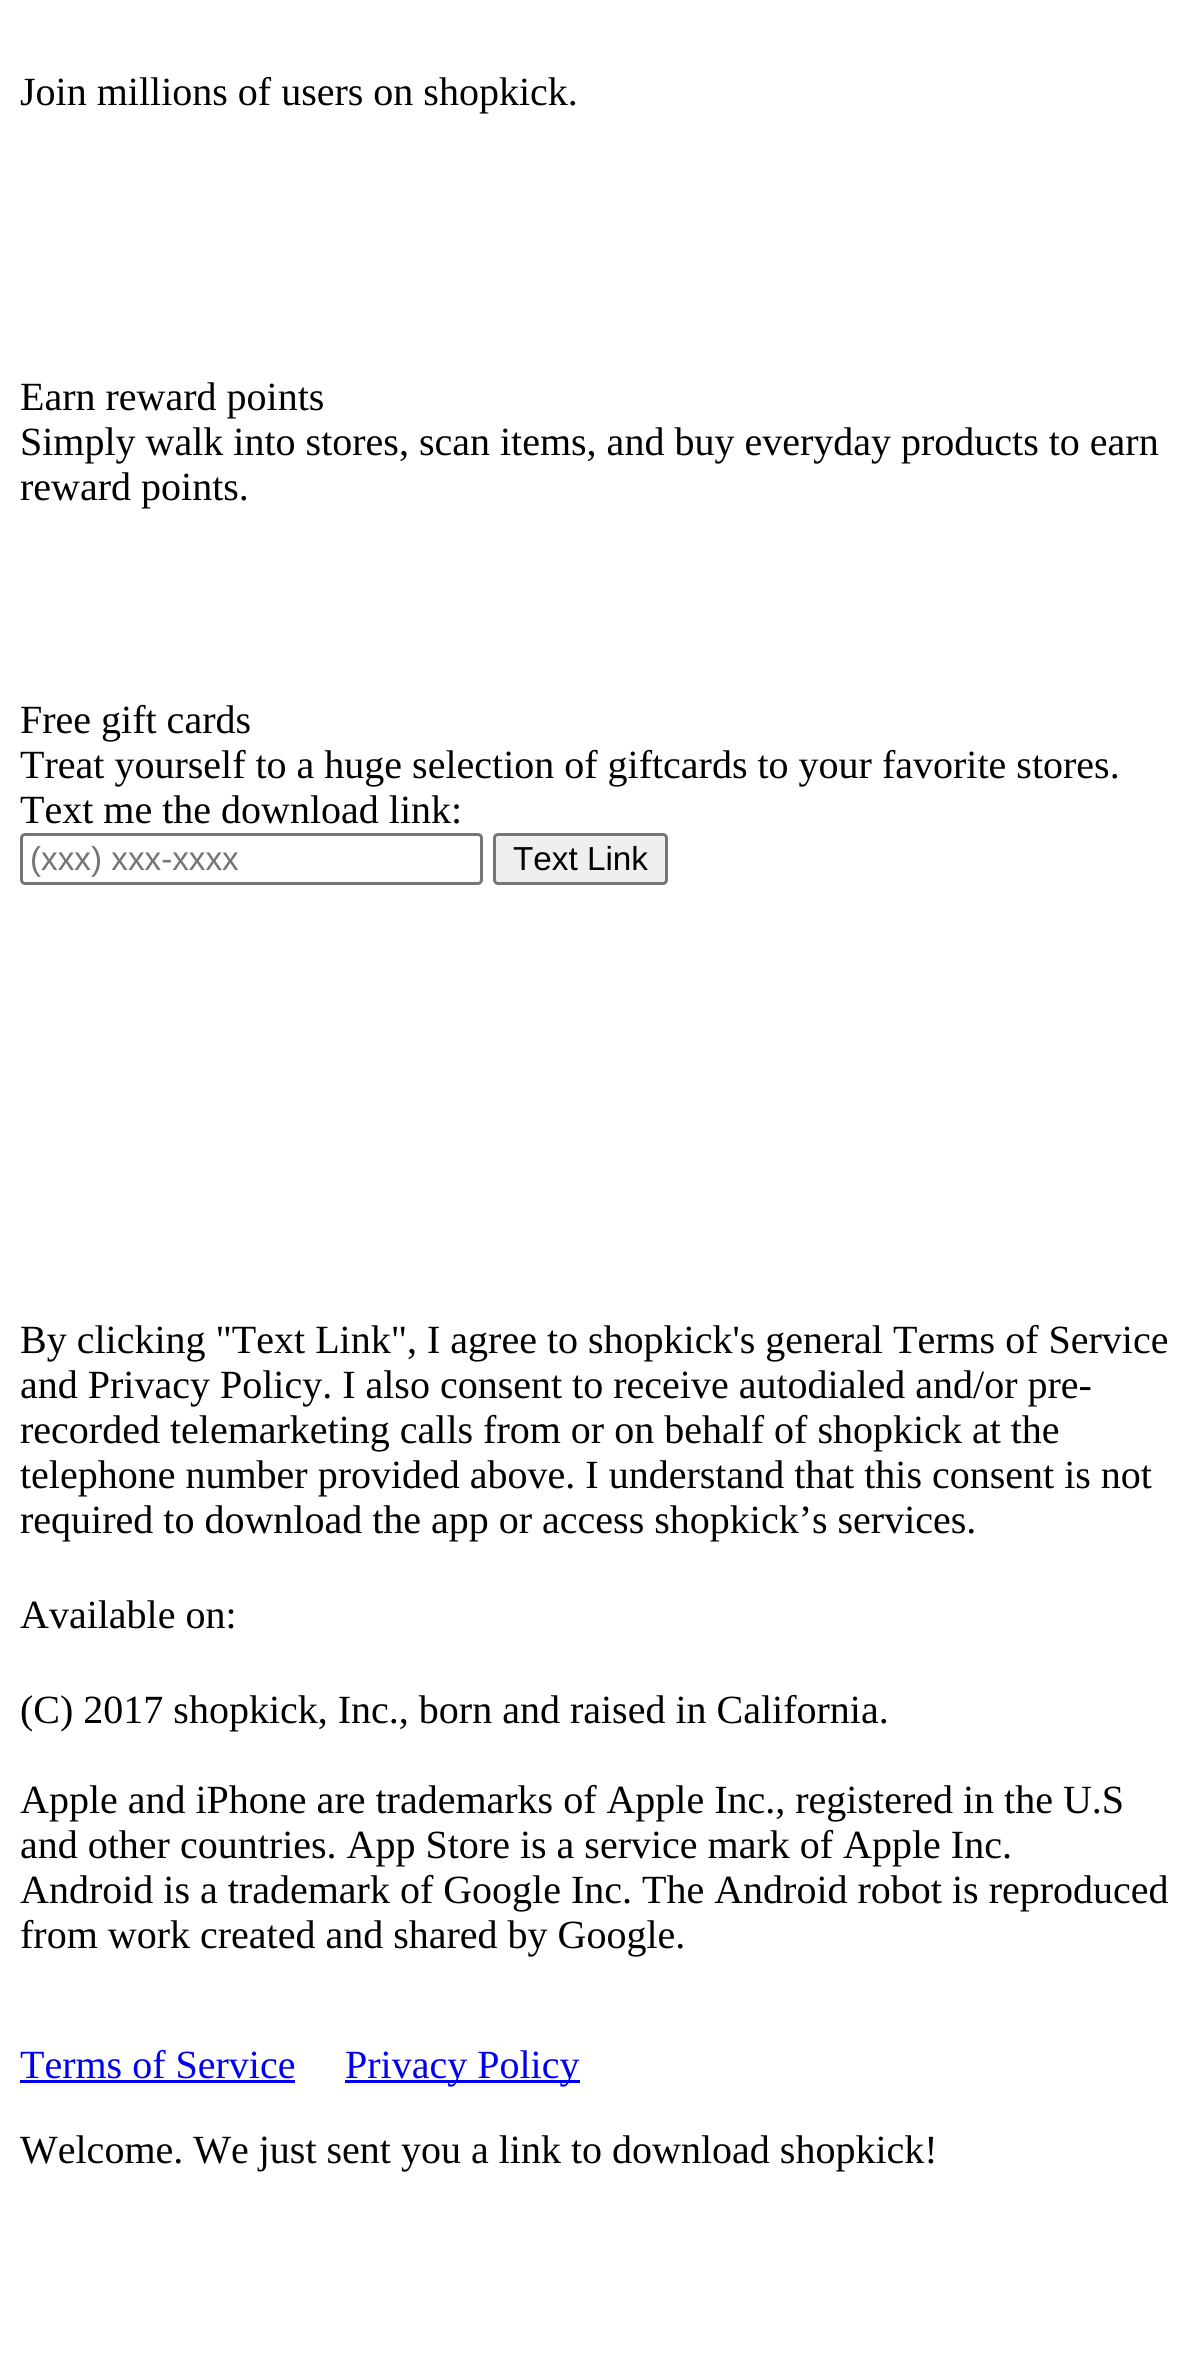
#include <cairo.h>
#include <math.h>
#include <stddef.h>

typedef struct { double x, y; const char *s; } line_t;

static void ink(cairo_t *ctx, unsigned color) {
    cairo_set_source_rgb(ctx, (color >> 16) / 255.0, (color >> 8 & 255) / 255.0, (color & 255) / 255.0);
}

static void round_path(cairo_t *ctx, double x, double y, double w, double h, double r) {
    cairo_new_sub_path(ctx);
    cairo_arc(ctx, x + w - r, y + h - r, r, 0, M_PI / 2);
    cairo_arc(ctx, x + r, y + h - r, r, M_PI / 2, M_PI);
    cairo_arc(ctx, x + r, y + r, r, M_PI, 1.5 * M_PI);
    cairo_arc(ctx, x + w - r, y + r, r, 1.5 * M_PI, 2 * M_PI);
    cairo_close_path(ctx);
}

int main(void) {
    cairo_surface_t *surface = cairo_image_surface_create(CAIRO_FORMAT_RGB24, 1199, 2362);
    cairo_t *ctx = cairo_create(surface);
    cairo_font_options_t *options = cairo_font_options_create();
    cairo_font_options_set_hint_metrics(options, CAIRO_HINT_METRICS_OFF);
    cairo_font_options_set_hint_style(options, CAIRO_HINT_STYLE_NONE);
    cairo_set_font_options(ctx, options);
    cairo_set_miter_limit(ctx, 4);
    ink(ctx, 0xFFFFFF);
    cairo_paint(ctx);
    cairo_select_font_face(ctx, "Liberation Serif", CAIRO_FONT_SLANT_NORMAL, CAIRO_FONT_WEIGHT_NORMAL);
    cairo_set_font_size(ctx, 40);
    ink(ctx, 0x000000);
    {
        static const line_t items[] = {
            {20, 105, "Join millions of users on shopkick."},
            {20, 410, "Earn reward points"},
            {20, 455, "Simply walk into stores, scan items, and buy everyday products to earn"},
            {20, 500, "reward points."},
            {20, 733, "Free gift cards"},
            {20, 778, "Treat yourself to a huge selection of giftcards to your favorite stores."},
            {20, 823, "Text me the download link:"},
        };
        for (size_t i = 0; i < sizeof items / sizeof *items; i++) {
            cairo_move_to(ctx, items[i].x, items[i].y);
            cairo_show_text(ctx, items[i].s);
        }
    }
    round_path(ctx, 21.5, 834.5, 460, 49, 3.5);
    ink(ctx, 0x767676);
    cairo_set_line_width(ctx, 3);
    cairo_stroke(ctx);
    cairo_select_font_face(ctx, "Liberation Sans", CAIRO_FONT_SLANT_NORMAL, CAIRO_FONT_WEIGHT_NORMAL);
    cairo_set_font_size(ctx, 33.25);
    ink(ctx, 0x757575);
    cairo_move_to(ctx, 30, 870);
    cairo_show_text(ctx, "(xxx) xxx-xxxx");
    ink(ctx, 0xEFEFEF);
    round_path(ctx, 494.5, 834.5, 172, 49, 3.5);
    cairo_fill_preserve(ctx);
    ink(ctx, 0x767676);
    cairo_stroke(ctx);
    ink(ctx, 0x000000);
    cairo_move_to(ctx, 513, 870);
    cairo_show_text(ctx, "Text Link");
    cairo_select_font_face(ctx, "Liberation Serif", CAIRO_FONT_SLANT_NORMAL, CAIRO_FONT_WEIGHT_NORMAL);
    cairo_set_font_size(ctx, 40);
    {
        static const line_t items[] = {
            {20, 1353, "By clicking \"Text Link\", I agree to shopkick's general Terms of Service"},
            {20, 1398, "and Privacy Policy. I also consent to receive autodialed and/or pre-"},
            {20, 1443, "recorded telemarketing calls from or on behalf of shopkick at the"},
            {20, 1488, "telephone number provided above. I understand that this consent is not"},
            {20, 1533, "required to download the app or access shopkick’s services."},
            {20, 1628, "Available on:"},
            {20, 1723, "(C) 2017 shopkick, Inc., born and raised in California."},
            {20, 1813, "Apple and iPhone are trademarks of Apple Inc., registered in the U.S"},
            {20, 1858, "and other countries. App Store is a service mark of Apple Inc."},
            {20, 1903, "Android is a trademark of Google Inc. The Android robot is reproduced"},
            {20, 1948, "from work created and shared by Google."},
        };
        for (size_t i = 0; i < sizeof items / sizeof *items; i++) {
            cairo_move_to(ctx, items[i].x, items[i].y);
            cairo_show_text(ctx, items[i].s);
        }
    }
    ink(ctx, 0x0000EE);
    cairo_move_to(ctx, 20, 2078);
    cairo_show_text(ctx, "Terms of Service");
    cairo_rectangle(ctx, 20, 2080, 275, 3);
    cairo_fill(ctx);
    cairo_rectangle(ctx, 345, 2080, 235, 3);
    cairo_fill(ctx);
    cairo_move_to(ctx, 345, 2078);
    cairo_show_text(ctx, "Privacy Policy");
    ink(ctx, 0x000000);
    cairo_move_to(ctx, 20, 2163);
    cairo_show_text(ctx, "Welcome. We just sent you a link to download shopkick!");
    cairo_surface_write_to_png(surface, "image.png");
    cairo_font_options_destroy(options);
    cairo_destroy(ctx);
    cairo_surface_destroy(surface);
    return 0;
}
